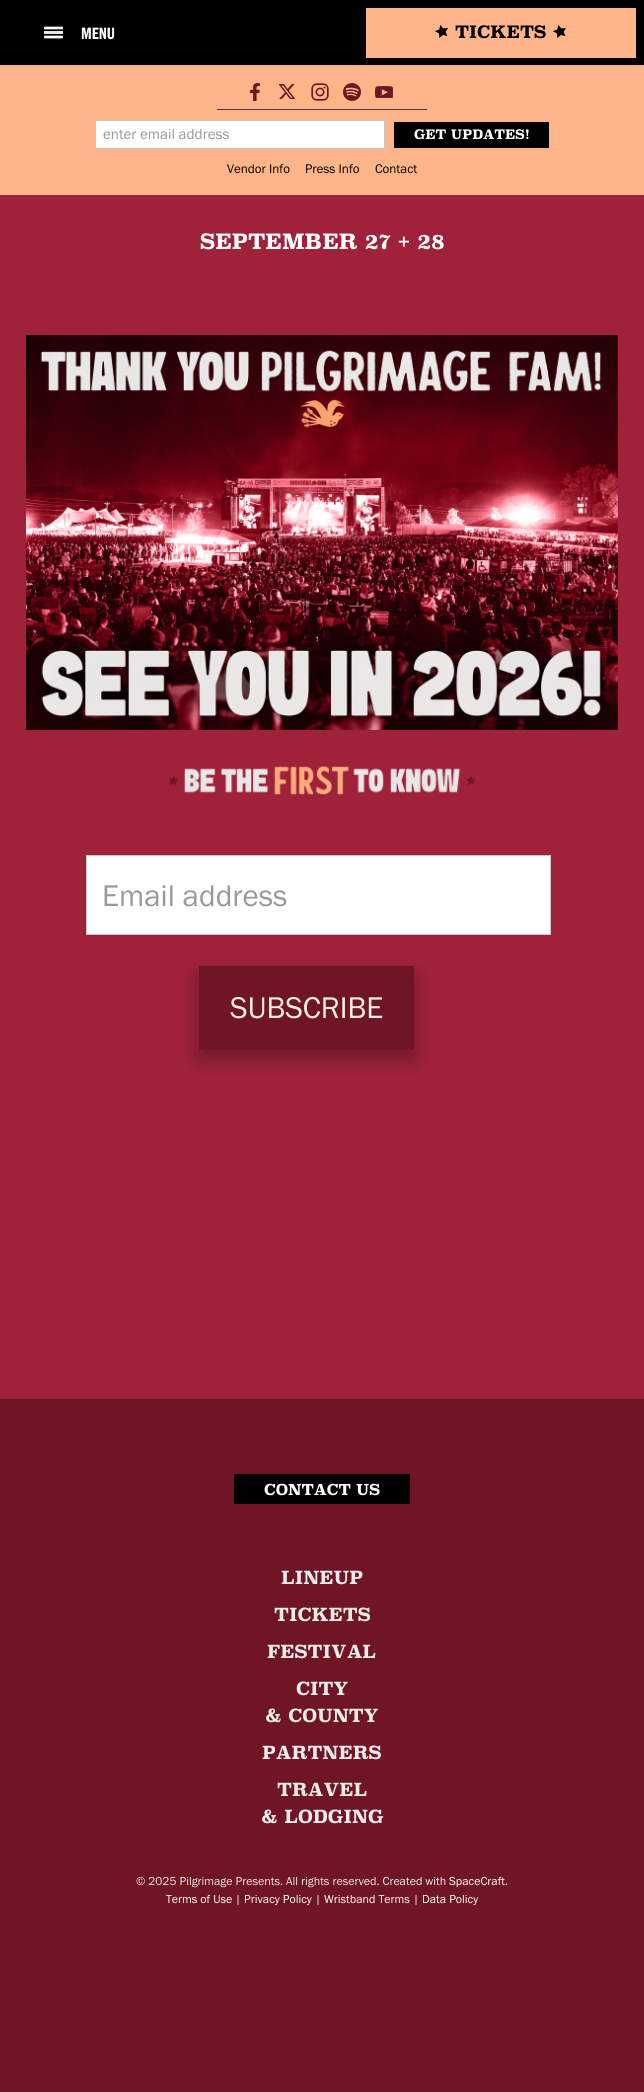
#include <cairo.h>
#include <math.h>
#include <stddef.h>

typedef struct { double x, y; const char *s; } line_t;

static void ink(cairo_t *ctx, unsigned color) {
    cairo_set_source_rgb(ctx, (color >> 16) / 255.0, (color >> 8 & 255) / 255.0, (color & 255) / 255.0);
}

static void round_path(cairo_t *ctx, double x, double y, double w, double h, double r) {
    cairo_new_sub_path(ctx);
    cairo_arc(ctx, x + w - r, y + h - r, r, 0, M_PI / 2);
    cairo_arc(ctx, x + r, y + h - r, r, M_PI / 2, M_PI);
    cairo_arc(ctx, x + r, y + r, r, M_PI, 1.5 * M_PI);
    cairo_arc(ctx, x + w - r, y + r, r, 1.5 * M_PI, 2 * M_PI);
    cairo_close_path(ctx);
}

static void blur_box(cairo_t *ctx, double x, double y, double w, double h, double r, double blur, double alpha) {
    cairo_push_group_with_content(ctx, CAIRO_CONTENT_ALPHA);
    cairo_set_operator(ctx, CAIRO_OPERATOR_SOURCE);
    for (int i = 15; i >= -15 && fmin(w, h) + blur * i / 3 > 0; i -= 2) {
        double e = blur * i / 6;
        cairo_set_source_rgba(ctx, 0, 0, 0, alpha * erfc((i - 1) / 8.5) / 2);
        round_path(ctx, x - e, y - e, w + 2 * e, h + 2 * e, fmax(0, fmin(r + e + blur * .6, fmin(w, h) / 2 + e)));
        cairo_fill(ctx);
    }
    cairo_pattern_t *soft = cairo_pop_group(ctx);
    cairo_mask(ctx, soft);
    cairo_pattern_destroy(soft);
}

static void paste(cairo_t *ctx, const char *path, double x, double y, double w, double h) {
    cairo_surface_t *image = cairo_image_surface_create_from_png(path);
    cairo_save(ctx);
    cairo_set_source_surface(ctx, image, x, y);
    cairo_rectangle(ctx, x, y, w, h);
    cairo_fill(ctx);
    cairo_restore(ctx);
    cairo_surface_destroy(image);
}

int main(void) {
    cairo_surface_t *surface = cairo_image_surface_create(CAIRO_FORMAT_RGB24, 644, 2092);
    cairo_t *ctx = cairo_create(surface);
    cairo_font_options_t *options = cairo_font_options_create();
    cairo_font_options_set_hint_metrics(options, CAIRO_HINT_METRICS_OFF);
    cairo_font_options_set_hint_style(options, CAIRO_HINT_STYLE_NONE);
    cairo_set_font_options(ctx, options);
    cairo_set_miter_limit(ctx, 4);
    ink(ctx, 0xA0223A);
    cairo_paint(ctx);
    ink(ctx, 0x000000);
    cairo_rectangle(ctx, 0, 0, 644, 65);
    cairo_fill(ctx);
    cairo_new_path(ctx);
    cairo_move_to(ctx, 45.5, 28);
    cairo_line_to(ctx, 61.5, 28);
    ink(ctx, 0xFFFFFF);
    cairo_set_line_width(ctx, 2.7);
    cairo_set_line_cap(ctx, CAIRO_LINE_CAP_SQUARE);
    cairo_stroke(ctx);
    ink(ctx, 0xE6E6E6);
    cairo_rectangle(ctx, 44, 31, 19, 3);
    cairo_fill(ctx);
    cairo_new_path(ctx);
    cairo_move_to(ctx, 45.5, 37);
    cairo_line_to(ctx, 61.5, 37);
    ink(ctx, 0xFFFFFF);
    cairo_stroke(ctx);
    cairo_select_font_face(ctx, "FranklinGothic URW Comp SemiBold", CAIRO_FONT_SLANT_NORMAL, CAIRO_FONT_WEIGHT_NORMAL);
    cairo_set_font_size(ctx, 17);
    cairo_move_to(ctx, 81, 39);
    cairo_show_text(ctx, "MENU");
    ink(ctx, 0xFFB588);
    cairo_rectangle(ctx, 366, 8, 270, 50);
    cairo_fill(ctx);
    paste(ctx, "media/1.png", 435, 25, 13, 13);
    cairo_select_font_face(ctx, "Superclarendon", CAIRO_FONT_SLANT_NORMAL, CAIRO_FONT_WEIGHT_BOLD);
    ink(ctx, 0x000000);
    cairo_move_to(ctx, 455, 38);
    cairo_show_text(ctx, "TICKETS");
    paste(ctx, "media/1.png", 553, 25, 13, 13);
    ink(ctx, 0xFFB588);
    cairo_rectangle(ctx, 0, 65, 644, 130);
    cairo_fill(ctx);
    ink(ctx, 0x532F56);
    cairo_rectangle(ctx, 217, 109, 210, 1);
    cairo_fill(ctx);
    paste(ctx, "media/2.png", 250, 83, 10, 18);
    paste(ctx, "media/3.png", 279, 84, 17, 15);
    paste(ctx, "media/4.png", 311, 83, 18, 18);
    paste(ctx, "media/5.png", 343, 83, 18, 18);
    paste(ctx, "media/6.png", 375, 86, 18, 12);
    ink(ctx, 0xFFFFFF);
    cairo_rectangle(ctx, 95.5, 120.5, 289, 28);
    cairo_fill_preserve(ctx);
    ink(ctx, 0xC8C8C8);
    cairo_set_line_width(ctx, 1);
    cairo_set_line_cap(ctx, CAIRO_LINE_CAP_BUTT);
    cairo_stroke(ctx);
    cairo_select_font_face(ctx, "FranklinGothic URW", CAIRO_FONT_SLANT_NORMAL, CAIRO_FONT_WEIGHT_NORMAL);
    cairo_set_font_size(ctx, 15);
    ink(ctx, 0x999999);
    cairo_move_to(ctx, 103, 139);
    cairo_show_text(ctx, "enter email address");
    ink(ctx, 0x000000);
    cairo_rectangle(ctx, 394, 122, 155, 26);
    cairo_fill(ctx);
    cairo_select_font_face(ctx, "Superclarendon", CAIRO_FONT_SLANT_NORMAL, CAIRO_FONT_WEIGHT_BOLD);
    cairo_set_font_size(ctx, 13);
    ink(ctx, 0xFFFFFF);
    cairo_move_to(ctx, 414, 139);
    cairo_show_text(ctx, "GET UPDATES!");
    cairo_select_font_face(ctx, "FranklinGothic URW", CAIRO_FONT_SLANT_NORMAL, CAIRO_FONT_WEIGHT_NORMAL);
    ink(ctx, 0x000000);
    {
        static const line_t items[] = {
            {227, 173, "Vendor Info"},
            {305, 173, "Press Info"},
            {375, 173, "Contact"},
        };
        for (size_t i = 0; i < sizeof items / sizeof *items; i++) {
            cairo_move_to(ctx, items[i].x, items[i].y);
            cairo_show_text(ctx, items[i].s);
        }
    }
    cairo_select_font_face(ctx, "Superclarendon", CAIRO_FONT_SLANT_NORMAL, CAIRO_FONT_WEIGHT_BOLD);
    cairo_set_font_size(ctx, 21);
    ink(ctx, 0xFFFFFF);
    cairo_move_to(ctx, 200, 249);
    cairo_show_text(ctx, "SEPTEMBER 27 + 28");
    paste(ctx, "media/7.png", 26, 335, 592, 395);
    paste(ctx, "media/8.png", 168, 765, 308, 30);
    cairo_rectangle(ctx, 86.5, 855.5, 464, 79);
    cairo_fill_preserve(ctx);
    ink(ctx, 0xC8C8C8);
    cairo_stroke(ctx);
    cairo_select_font_face(ctx, "FranklinGothic URW", CAIRO_FONT_SLANT_NORMAL, CAIRO_FONT_WEIGHT_NORMAL);
    cairo_set_font_size(ctx, 31);
    ink(ctx, 0x999999);
    cairo_move_to(ctx, 102, 906);
    cairo_show_text(ctx, "Email address");
    ink(ctx, 0x000000);
    blur_box(ctx, 199, 976, 215, 84, 0, 10, 0.3);
    ink(ctx, 0x701523);
    cairo_rectangle(ctx, 199, 966, 215, 84);
    cairo_fill(ctx);
    ink(ctx, 0xF7F1E1);
    cairo_move_to(ctx, 230, 1018);
    cairo_show_text(ctx, "SUBSCRIBE");
    ink(ctx, 0x701523);
    cairo_rectangle(ctx, 0, 1399, 644, 693);
    cairo_fill(ctx);
    ink(ctx, 0x000000);
    cairo_rectangle(ctx, 234, 1474, 176, 30);
    cairo_fill(ctx);
    cairo_select_font_face(ctx, "Superclarendon", CAIRO_FONT_SLANT_NORMAL, CAIRO_FONT_WEIGHT_BOLD);
    cairo_set_font_size(ctx, 15);
    ink(ctx, 0xFFFFFF);
    cairo_move_to(ctx, 264, 1495);
    cairo_show_text(ctx, "CONTACT US");
    cairo_set_font_size(ctx, 18);
    ink(ctx, 0xEBEBEB);
    {
        static const line_t items[] = {
            {281, 1584, "LINEUP"},
            {274, 1621, "TICKETS"},
            {267, 1658, "FESTIVAL"},
            {296, 1695, "CITY"},
            {265, 1722, "& COUNTY"},
            {262, 1759, "PARTNERS"},
            {277, 1796, "TRAVEL"},
            {261, 1823, "& LODGING"},
        };
        for (size_t i = 0; i < sizeof items / sizeof *items; i++) {
            cairo_move_to(ctx, items[i].x, items[i].y);
            cairo_show_text(ctx, items[i].s);
        }
    }
    cairo_select_font_face(ctx, "FranklinGothic URW", CAIRO_FONT_SLANT_NORMAL, CAIRO_FONT_WEIGHT_NORMAL);
    cairo_set_font_size(ctx, 12);
    cairo_move_to(ctx, 136, 1885);
    cairo_show_text(ctx, "© 2025 Pilgrimage Presents. All rights reserved. Created with");
    ink(ctx, 0xFFFFFF);
    cairo_move_to(ctx, 449, 1885);
    cairo_show_text(ctx, "SpaceCraft");
    ink(ctx, 0xEBEBEB);
    cairo_move_to(ctx, 505, 1885);
    cairo_show_text(ctx, ".");
    ink(ctx, 0xFFFFFF);
    cairo_move_to(ctx, 166, 1903);
    cairo_show_text(ctx, "Terms of Use");
    ink(ctx, 0xEBEBEB);
    cairo_move_to(ctx, 235, 1903);
    cairo_show_text(ctx, "|");
    ink(ctx, 0xFFFFFF);
    cairo_move_to(ctx, 244, 1903);
    cairo_show_text(ctx, "Privacy Policy");
    ink(ctx, 0xEBEBEB);
    cairo_move_to(ctx, 315, 1903);
    cairo_show_text(ctx, "|");
    ink(ctx, 0xFFFFFF);
    cairo_move_to(ctx, 324, 1903);
    cairo_show_text(ctx, "Wristband Terms");
    ink(ctx, 0xEBEBEB);
    cairo_move_to(ctx, 413, 1903);
    cairo_show_text(ctx, "|");
    ink(ctx, 0xFFFFFF);
    cairo_move_to(ctx, 422, 1903);
    cairo_show_text(ctx, "Data Policy");
    cairo_surface_write_to_png(surface, "image.png");
    cairo_font_options_destroy(options);
    cairo_destroy(ctx);
    cairo_surface_destroy(surface);
    return 0;
}
